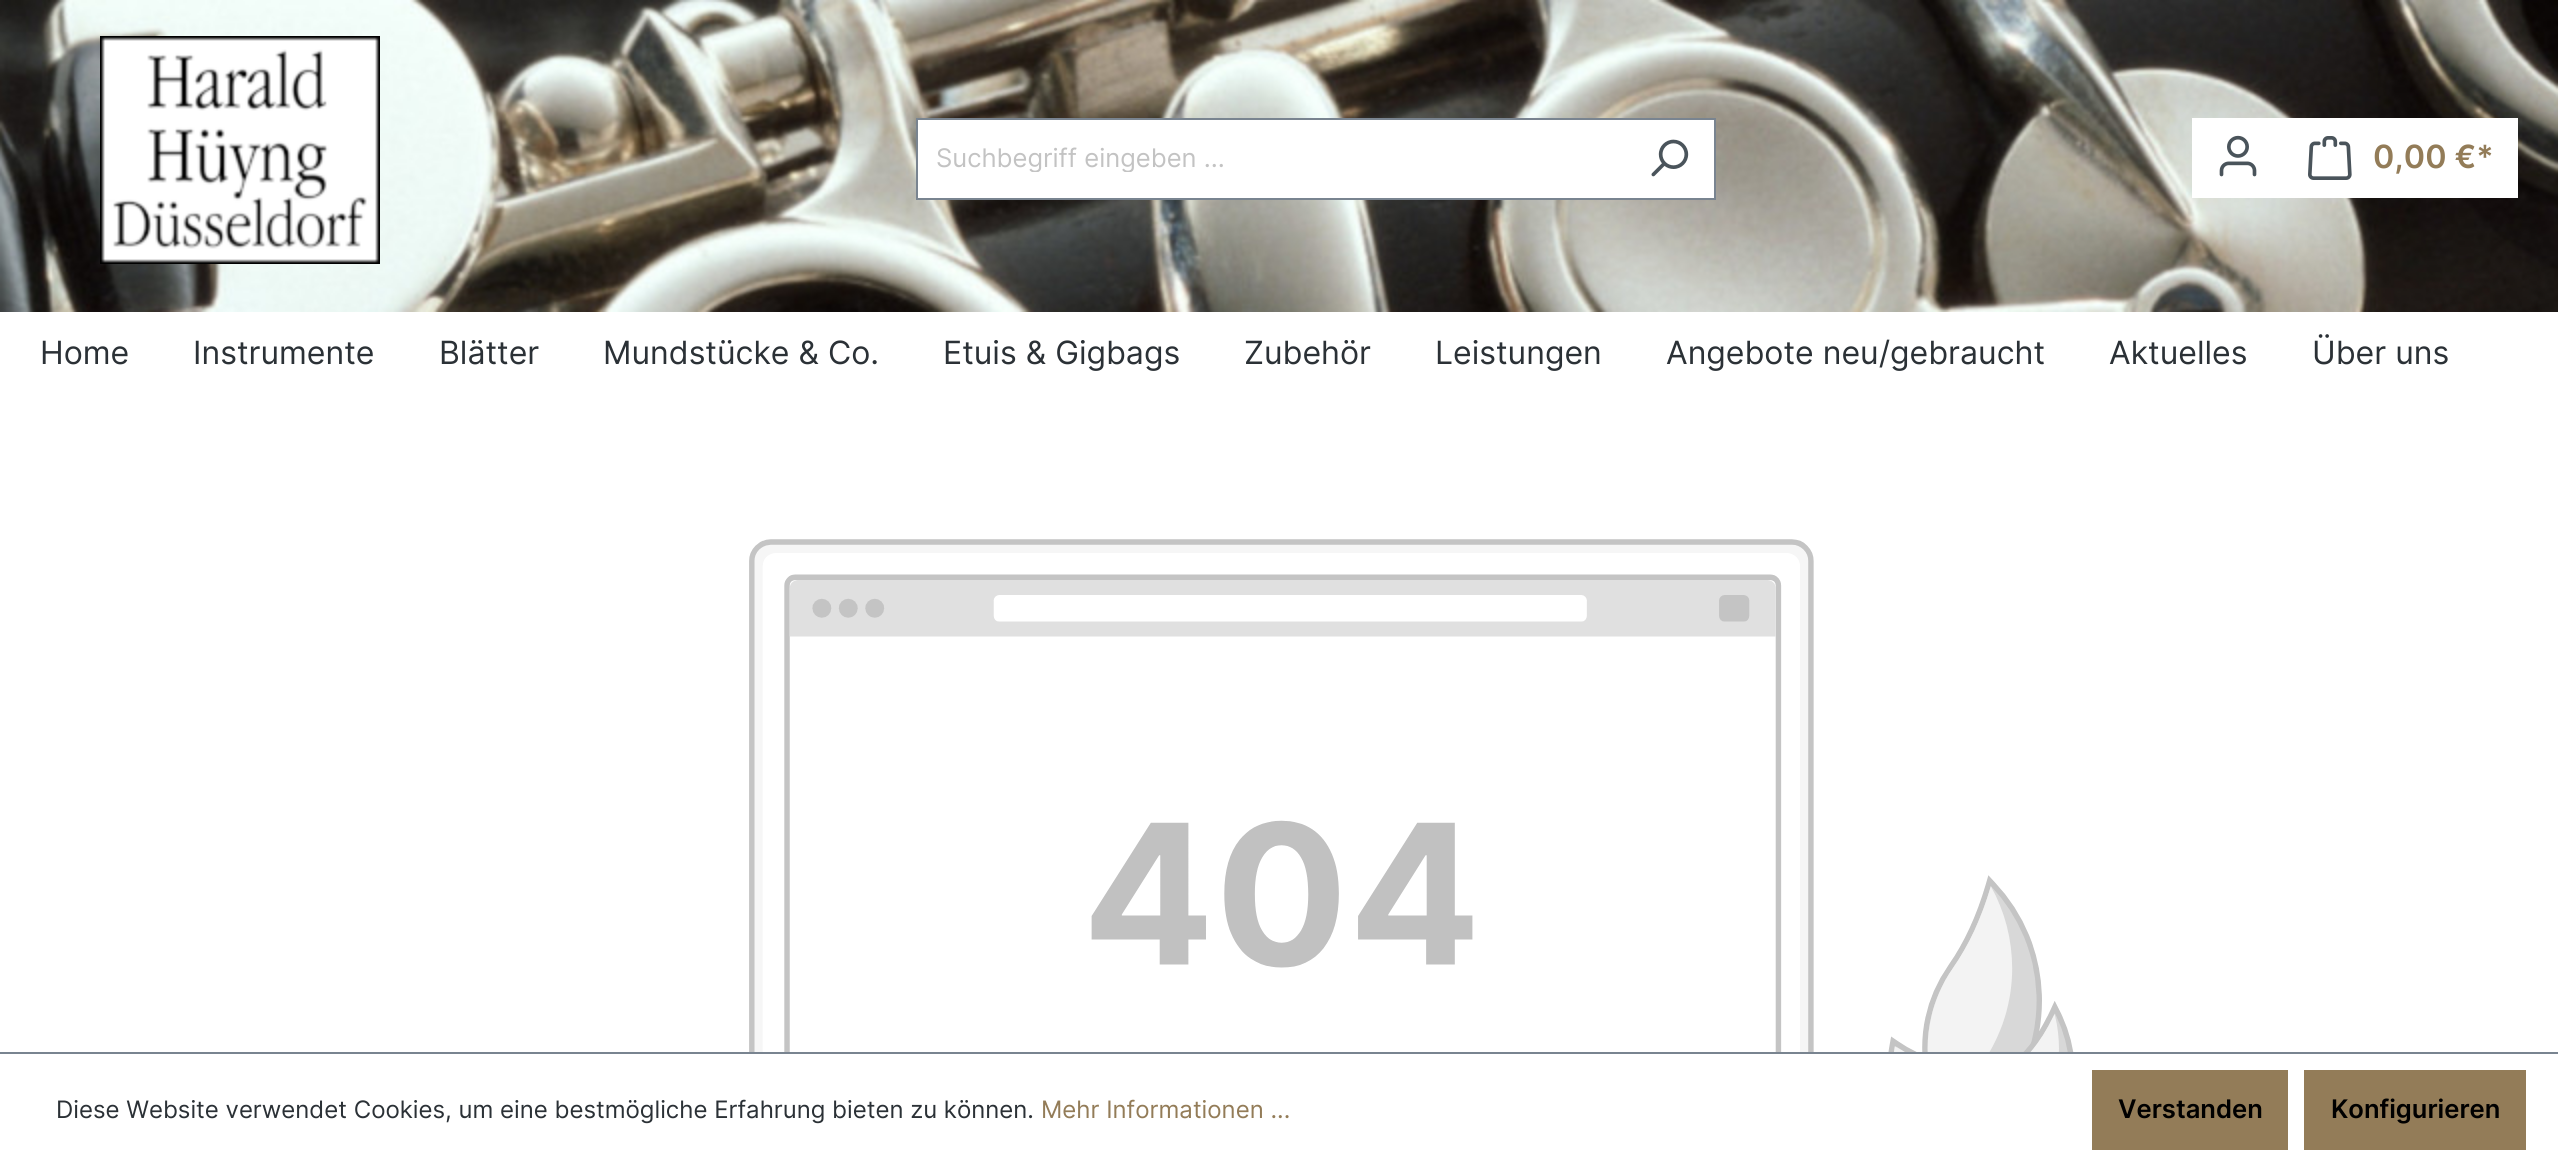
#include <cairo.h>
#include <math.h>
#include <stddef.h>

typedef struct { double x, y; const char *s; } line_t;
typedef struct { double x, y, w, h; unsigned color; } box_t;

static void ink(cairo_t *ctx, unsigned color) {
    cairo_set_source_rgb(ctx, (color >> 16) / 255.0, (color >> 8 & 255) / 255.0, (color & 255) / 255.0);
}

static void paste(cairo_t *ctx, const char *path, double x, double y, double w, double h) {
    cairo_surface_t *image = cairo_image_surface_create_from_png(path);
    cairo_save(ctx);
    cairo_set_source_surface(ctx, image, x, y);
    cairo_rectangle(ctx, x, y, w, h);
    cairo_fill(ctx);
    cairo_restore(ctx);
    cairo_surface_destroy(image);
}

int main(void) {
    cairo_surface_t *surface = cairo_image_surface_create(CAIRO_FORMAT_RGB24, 2558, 1166);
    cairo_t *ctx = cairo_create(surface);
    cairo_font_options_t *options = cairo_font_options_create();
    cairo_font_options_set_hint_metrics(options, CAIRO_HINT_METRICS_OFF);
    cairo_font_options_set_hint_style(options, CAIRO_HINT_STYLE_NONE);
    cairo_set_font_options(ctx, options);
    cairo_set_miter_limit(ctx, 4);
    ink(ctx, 0xFFFFFF);
    cairo_paint(ctx);
    paste(ctx, "media/1.png", 0, 0, 2558, 312);
    paste(ctx, "media/2.png", 100, 36, 280, 228);
    {
        static const box_t items[] = {
            {918, 120, 796, 78, 0xFFFFFF},
            {916, 118, 800, 2, 0x798490},
            {916, 198, 708, 2, 0x798490},
            {916, 118, 2, 82, 0x798490},
        };
        for (size_t i = 0; i < sizeof items / sizeof *items; i++) {
            ink(ctx, items[i].color);
            cairo_rectangle(ctx, items[i].x, items[i].y, items[i].w, items[i].h);
            cairo_fill(ctx);
        }
    }
    cairo_save(ctx);
    cairo_rectangle(ctx, 936, 142, 670, 30);
    cairo_clip(ctx);
    cairo_select_font_face(ctx, "Inter", CAIRO_FONT_SLANT_NORMAL, CAIRO_FONT_WEIGHT_NORMAL);
    cairo_set_font_size(ctx, 25.6);
    ink(ctx, 0xC3C3C3);
    cairo_move_to(ctx, 936, 167);
    cairo_show_text(ctx, "Suchbegriff eingeben ...");
    cairo_restore(ctx);
    cairo_rectangle(ctx, 1714, 118, 2, 82);
    cairo_fill(ctx);
    cairo_rectangle(ctx, 1622, 198, 94, 2);
    cairo_fill(ctx);
    paste(ctx, "media/3.png", 1651, 139, 38, 38);
    ink(ctx, 0xFFFFFF);
    cairo_rectangle(ctx, 2192, 118, 326, 80);
    cairo_fill(ctx);
    paste(ctx, "media/4.png", 2219, 135, 38, 42);
    paste(ctx, "media/5.png", 2308, 136, 44, 44);
    cairo_select_font_face(ctx, "Inter SemiBold", CAIRO_FONT_SLANT_NORMAL, CAIRO_FONT_WEIGHT_NORMAL);
    cairo_set_font_size(ctx, 32);
    ink(ctx, 0x937C58);
    cairo_move_to(ctx, 2373, 168);
    cairo_show_text(ctx, "0,00 €*");
    cairo_select_font_face(ctx, "Inter", CAIRO_FONT_SLANT_NORMAL, CAIRO_FONT_WEIGHT_NORMAL);
    ink(ctx, 0x2B3136);
    {
        static const line_t items[] = {
            {40, 364, "Home"},
            {193, 364, "Instrumente"},
            {439, 364, "Blätter"},
            {603, 364, "Mundstücke & Co."},
            {943, 364, "Etuis & Gigbags"},
            {1244, 364, "Zubehör"},
            {1435, 364, "Leistungen"},
            {1666, 364, "Angebote neu/gebraucht"},
            {2109, 364, "Aktuelles"},
            {2312, 364, "Über uns"},
        };
        for (size_t i = 0; i < sizeof items / sizeof *items; i++) {
            cairo_move_to(ctx, items[i].x, items[i].y);
            cairo_show_text(ctx, items[i].s);
        }
    }
    paste(ctx, "media/6.png", 749, 539, 1325, 513);
    ink(ctx, 0x798490);
    cairo_rectangle(ctx, 0, 1052, 2558, 2);
    cairo_fill(ctx);
    cairo_set_font_size(ctx, 24);
    ink(ctx, 0x2B3136);
    cairo_move_to(ctx, 56, 1118);
    cairo_show_text(ctx, "Diese Website verwendet Cookies, um eine bestmögliche Erfahrung bieten zu können.");
    ink(ctx, 0x937C58);
    cairo_move_to(ctx, 1041, 1118);
    cairo_show_text(ctx, "Mehr Informationen ...");
    cairo_rectangle(ctx, 2092, 1070, 196, 80);
    cairo_fill(ctx);
    cairo_select_font_face(ctx, "Inter SemiBold", CAIRO_FONT_SLANT_NORMAL, CAIRO_FONT_WEIGHT_NORMAL);
    cairo_set_font_size(ctx, 25.6);
    ink(ctx, 0x000000);
    cairo_move_to(ctx, 2118, 1118);
    cairo_show_text(ctx, "Verstanden");
    ink(ctx, 0x937C58);
    cairo_rectangle(ctx, 2304, 1070, 222, 80);
    cairo_fill(ctx);
    ink(ctx, 0x000000);
    cairo_move_to(ctx, 2331, 1118);
    cairo_show_text(ctx, "Konfigurieren");
    cairo_surface_write_to_png(surface, "image.png");
    cairo_font_options_destroy(options);
    cairo_destroy(ctx);
    cairo_surface_destroy(surface);
    return 0;
}
